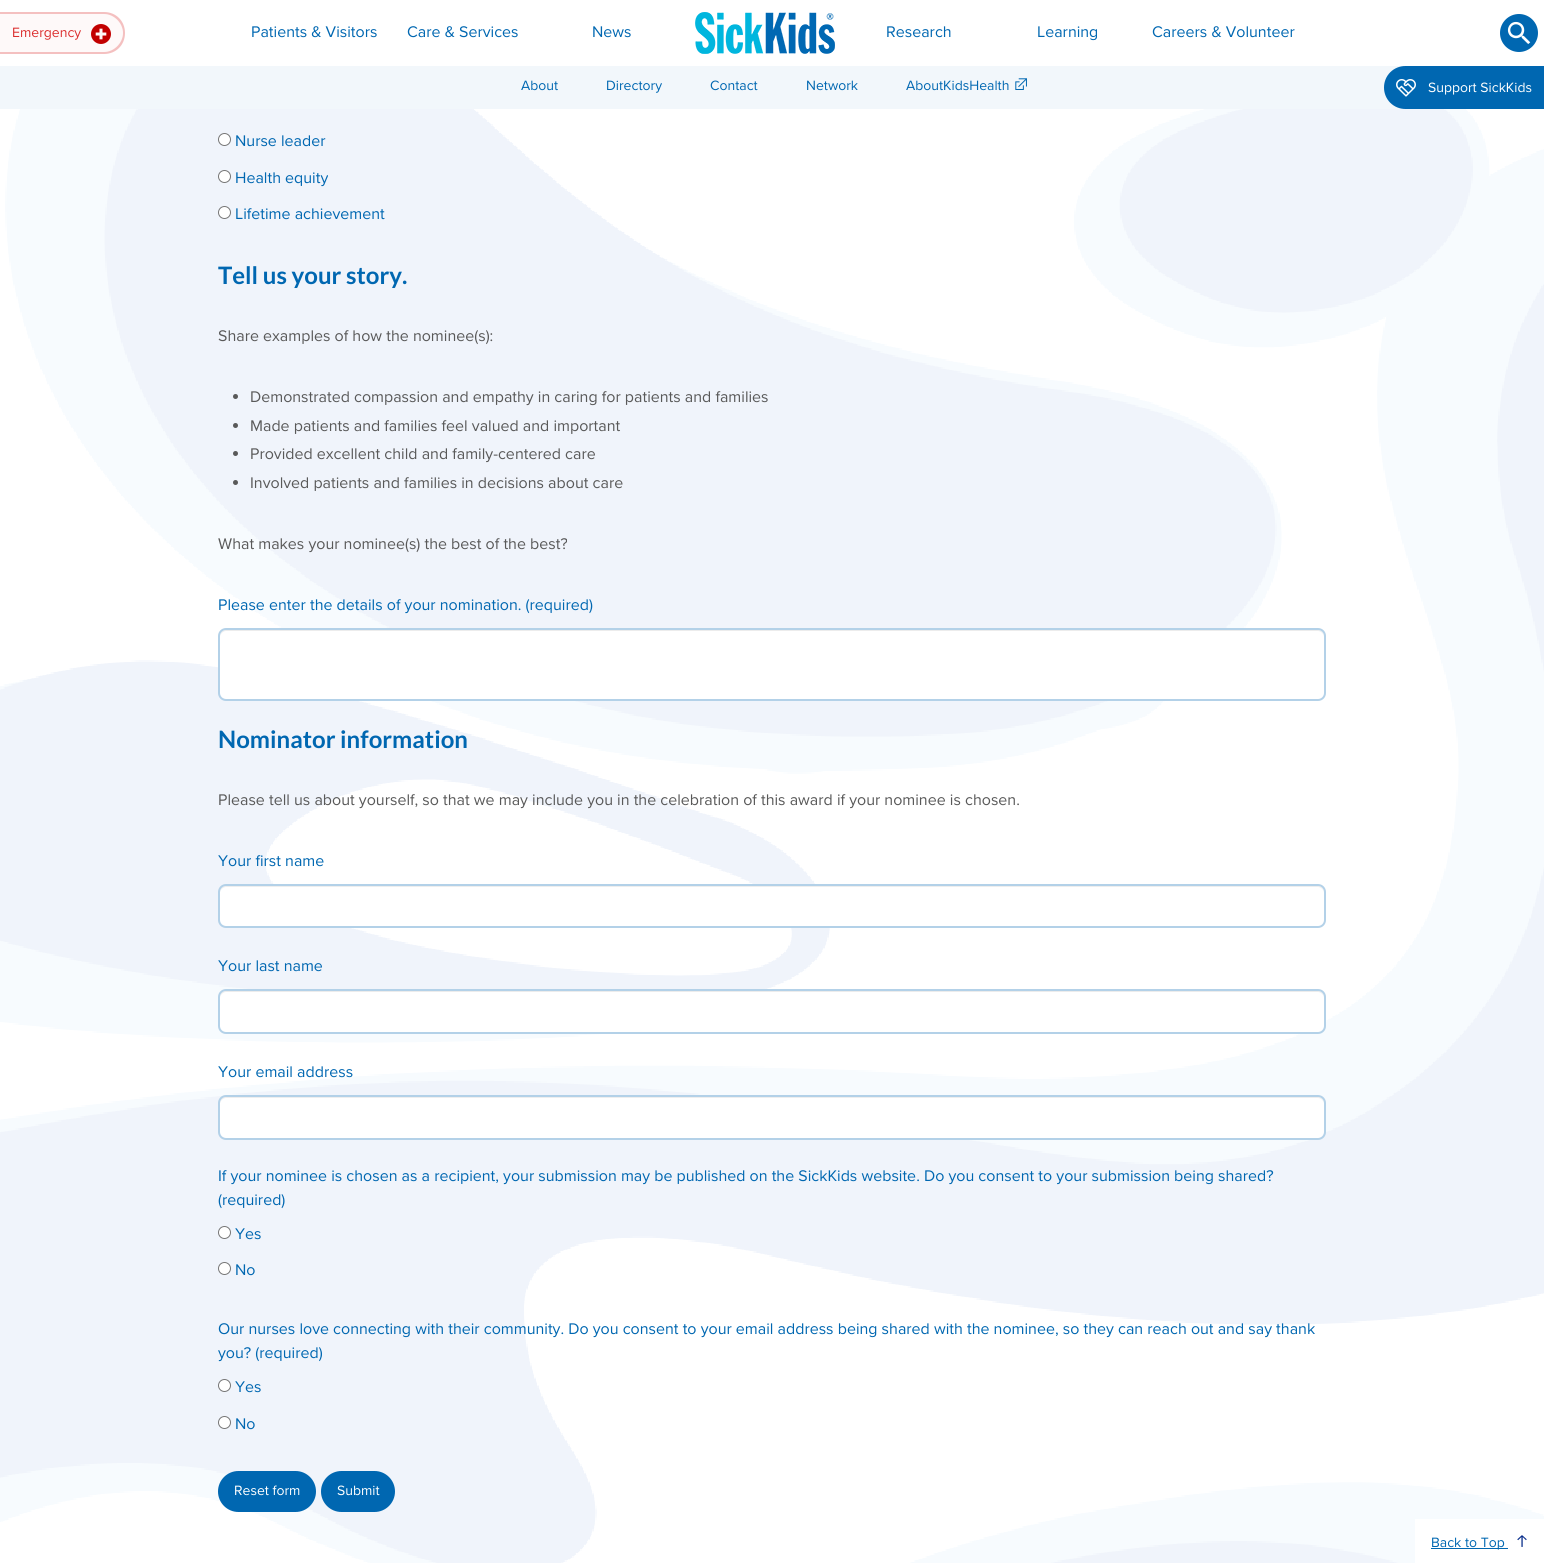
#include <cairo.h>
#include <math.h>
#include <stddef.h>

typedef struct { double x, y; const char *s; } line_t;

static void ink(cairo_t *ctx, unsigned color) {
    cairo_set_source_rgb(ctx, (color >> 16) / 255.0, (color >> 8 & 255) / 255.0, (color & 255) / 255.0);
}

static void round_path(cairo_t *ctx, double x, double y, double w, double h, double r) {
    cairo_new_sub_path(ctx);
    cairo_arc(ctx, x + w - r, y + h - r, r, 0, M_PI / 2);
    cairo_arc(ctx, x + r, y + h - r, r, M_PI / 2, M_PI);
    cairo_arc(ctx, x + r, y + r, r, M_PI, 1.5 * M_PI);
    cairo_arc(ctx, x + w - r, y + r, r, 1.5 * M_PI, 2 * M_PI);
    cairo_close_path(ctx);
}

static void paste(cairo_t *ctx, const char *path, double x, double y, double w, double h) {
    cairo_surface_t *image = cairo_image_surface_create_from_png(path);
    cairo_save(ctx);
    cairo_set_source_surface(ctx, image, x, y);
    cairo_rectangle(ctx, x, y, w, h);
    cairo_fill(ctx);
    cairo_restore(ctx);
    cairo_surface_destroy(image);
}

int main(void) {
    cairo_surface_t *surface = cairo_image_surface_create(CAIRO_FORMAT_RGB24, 1544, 1563);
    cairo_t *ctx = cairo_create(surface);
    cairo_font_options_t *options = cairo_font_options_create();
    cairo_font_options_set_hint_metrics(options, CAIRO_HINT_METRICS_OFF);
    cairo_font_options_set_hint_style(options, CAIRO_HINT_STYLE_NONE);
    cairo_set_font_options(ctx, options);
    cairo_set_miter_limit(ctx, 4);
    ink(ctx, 0xFFFFFF);
    cairo_paint(ctx);
    paste(ctx, "media/1.png", 0, 109, 1544, 1454);
    ink(ctx, 0xFEF9F9);
    cairo_new_path(ctx);
    cairo_move_to(ctx, 0, 14);
    cairo_line_to(ctx, 104, 14);
    cairo_curve_to(ctx, 114.5, 14, 123, 22.5, 123, 33);
    cairo_curve_to(ctx, 123, 43.5, 114.5, 52, 104, 52);
    cairo_line_to(ctx, 0, 52);
    cairo_close_path(ctx);
    cairo_fill(ctx);
    ink(ctx, 0xF4C0C0);
    cairo_set_fill_rule(ctx, CAIRO_FILL_RULE_EVEN_ODD);
    cairo_new_path(ctx);
    cairo_move_to(ctx, 0, 12);
    cairo_line_to(ctx, 104, 12);
    cairo_curve_to(ctx, 116, 12, 125, 21, 125, 33);
    cairo_curve_to(ctx, 125, 45, 116, 54, 104, 54);
    cairo_line_to(ctx, 0, 54);
    cairo_close_path(ctx);
    cairo_move_to(ctx, 0, 14);
    cairo_line_to(ctx, 104, 14);
    cairo_curve_to(ctx, 114, 14, 123, 23, 123, 33);
    cairo_curve_to(ctx, 123, 43, 114, 52, 104, 52);
    cairo_line_to(ctx, 0, 52);
    cairo_close_path(ctx);
    cairo_fill(ctx);
    cairo_select_font_face(ctx, "Proxima Nova", CAIRO_FONT_SLANT_NORMAL, CAIRO_FONT_WEIGHT_NORMAL);
    cairo_set_font_size(ctx, 14);
    ink(ctx, 0xDB2E2E);
    cairo_move_to(ctx, 12, 37);
    cairo_show_text(ctx, "Emergency");
    paste(ctx, "media/2.png", 91, 24, 20, 20);
    cairo_set_font_size(ctx, 16);
    ink(ctx, 0x0067B1);
    {
        static const line_t items[] = {
            {251, 37, "Patients & Visitors"},
            {407, 37, "Care & Services"},
            {592, 37, "News"},
        };
        for (size_t i = 0; i < sizeof items / sizeof *items; i++) {
            cairo_move_to(ctx, items[i].x, items[i].y);
            cairo_show_text(ctx, items[i].s);
        }
    }
    paste(ctx, "media/3.png", 695, 12, 140, 42);
    {
        static const line_t items[] = {
            {886, 37, "Research"},
            {1037, 37, "Learning"},
            {1152, 37, "Careers & Volunteer"},
        };
        for (size_t i = 0; i < sizeof items / sizeof *items; i++) {
            cairo_move_to(ctx, items[i].x, items[i].y);
            cairo_show_text(ctx, items[i].s);
        }
    }
    paste(ctx, "media/4.png", 1500, 14, 38, 38);
    ink(ctx, 0xF2F7FB);
    cairo_rectangle(ctx, 0, 66, 1405, 43);
    cairo_fill(ctx);
    cairo_set_font_size(ctx, 14);
    ink(ctx, 0x0067B1);
    {
        static const line_t items[] = {
            {521, 90, "About"},
            {606, 90, "Directory"},
            {710, 90, "Contact"},
            {806, 90, "Network"},
            {906, 90, "AboutKidsHealth"},
        };
        for (size_t i = 0; i < sizeof items / sizeof *items; i++) {
            cairo_move_to(ctx, items[i].x, items[i].y);
            cairo_show_text(ctx, items[i].s);
        }
    }
    paste(ctx, "media/5.png", 1015, 78, 12, 12);
    cairo_new_path(ctx);
    cairo_move_to(ctx, 1405.5, 66);
    cairo_line_to(ctx, 1544, 66);
    cairo_line_to(ctx, 1544, 109);
    cairo_line_to(ctx, 1405.5, 109);
    cairo_curve_to(ctx, 1393.5, 109, 1384, 99.5, 1384, 87.5);
    cairo_curve_to(ctx, 1384, 75.5, 1393.5, 66, 1405.5, 66);
    cairo_close_path(ctx);
    cairo_fill(ctx);
    paste(ctx, "media/6.png", 1396, 79, 20, 18);
    ink(ctx, 0xFFFFFF);
    cairo_move_to(ctx, 1428, 92);
    cairo_show_text(ctx, "Support SickKids");
    cairo_new_path(ctx);
    cairo_arc(ctx, 224.5, 139.5, 6, 0, 2 * M_PI);
    cairo_fill_preserve(ctx);
    ink(ctx, 0x767676);
    cairo_set_line_width(ctx, 1);
    cairo_stroke(ctx);
    cairo_set_font_size(ctx, 16);
    ink(ctx, 0x0067B1);
    cairo_move_to(ctx, 235, 146);
    cairo_show_text(ctx, "Nurse leader");
    ink(ctx, 0xFFFFFF);
    cairo_new_path(ctx);
    cairo_arc(ctx, 224.5, 176.5, 6, 0, 2 * M_PI);
    cairo_fill_preserve(ctx);
    ink(ctx, 0x767676);
    cairo_stroke(ctx);
    ink(ctx, 0x0067B1);
    cairo_move_to(ctx, 235, 183);
    cairo_show_text(ctx, "Health equity");
    ink(ctx, 0xFFFFFF);
    cairo_new_path(ctx);
    cairo_arc(ctx, 224.5, 212.5, 6, 0, 2 * M_PI);
    cairo_fill_preserve(ctx);
    ink(ctx, 0x767676);
    cairo_stroke(ctx);
    ink(ctx, 0x0067B1);
    cairo_move_to(ctx, 235, 219);
    cairo_show_text(ctx, "Lifetime achievement");
    cairo_select_font_face(ctx, "Lato", CAIRO_FONT_SLANT_NORMAL, CAIRO_FONT_WEIGHT_BOLD);
    cairo_set_font_size(ctx, 24);
    cairo_move_to(ctx, 218, 284);
    cairo_show_text(ctx, "Tell us your story.");
    cairo_select_font_face(ctx, "Proxima Nova", CAIRO_FONT_SLANT_NORMAL, CAIRO_FONT_WEIGHT_NORMAL);
    cairo_set_font_size(ctx, 16);
    ink(ctx, 0x595959);
    cairo_move_to(ctx, 218, 341);
    cairo_show_text(ctx, "Share examples of how the nominee(s):");
    cairo_new_path(ctx);
    cairo_arc(ctx, 235.5, 396.5, 2.5, 0, 2 * M_PI);
    cairo_fill(ctx);
    cairo_move_to(ctx, 250, 402);
    cairo_show_text(ctx, "Demonstrated compassion and empathy in caring for patients and families");
    cairo_new_path(ctx);
    cairo_arc(ctx, 235.5, 425.5, 2.5, 0, 2 * M_PI);
    cairo_fill(ctx);
    cairo_move_to(ctx, 250, 431);
    cairo_show_text(ctx, "Made patients and families feel valued and important");
    cairo_new_path(ctx);
    cairo_arc(ctx, 235.5, 453.5, 2.5, 0, 2 * M_PI);
    cairo_fill(ctx);
    cairo_move_to(ctx, 250, 459);
    cairo_show_text(ctx, "Provided excellent child and family-centered care");
    cairo_new_path(ctx);
    cairo_arc(ctx, 235.5, 482.5, 2.5, 0, 2 * M_PI);
    cairo_fill(ctx);
    cairo_move_to(ctx, 250, 488);
    cairo_show_text(ctx, "Involved patients and families in decisions about care");
    cairo_move_to(ctx, 218, 549);
    cairo_show_text(ctx, "What makes your nominee(s) the best of the best?");
    ink(ctx, 0x0067B1);
    cairo_move_to(ctx, 218, 610);
    cairo_show_text(ctx, "Please enter the details of your nomination. (required)");
    ink(ctx, 0xFFFFFF);
    round_path(ctx, 220, 630, 1104, 69, 6);
    cairo_fill(ctx);
    ink(ctx, 0xECECEC);
    cairo_set_fill_rule(ctx, CAIRO_FILL_RULE_WINDING);
    cairo_new_path(ctx);
    cairo_move_to(ctx, 226, 631);
    cairo_line_to(ctx, 1318, 631);
    cairo_curve_to(ctx, 1321, 631, 1324, 634, 1324, 637);
    cairo_curve_to(ctx, 1324, 633, 1322, 630, 1318, 630);
    cairo_line_to(ctx, 226, 630);
    cairo_curve_to(ctx, 222, 630, 220, 633, 220, 637);
    cairo_curve_to(ctx, 220, 634, 223, 631, 226, 631);
    cairo_close_path(ctx);
    cairo_fill(ctx);
    round_path(ctx, 219, 629, 1106, 71, 7);
    ink(ctx, 0xB3D1E8);
    cairo_set_line_width(ctx, 2);
    cairo_stroke(ctx);
    cairo_select_font_face(ctx, "Lato", CAIRO_FONT_SLANT_NORMAL, CAIRO_FONT_WEIGHT_BOLD);
    cairo_set_font_size(ctx, 24);
    ink(ctx, 0x0067B1);
    cairo_move_to(ctx, 218, 748);
    cairo_show_text(ctx, "Nominator information");
    cairo_select_font_face(ctx, "Proxima Nova", CAIRO_FONT_SLANT_NORMAL, CAIRO_FONT_WEIGHT_NORMAL);
    cairo_set_font_size(ctx, 16);
    ink(ctx, 0x595959);
    cairo_move_to(ctx, 218, 805);
    cairo_show_text(ctx, "Please tell us about yourself, so that we may include you in the celebration of this award if your nominee is chosen.");
    ink(ctx, 0x0067B1);
    cairo_move_to(ctx, 218, 866);
    cairo_show_text(ctx, "Your first name");
    ink(ctx, 0xFFFFFF);
    round_path(ctx, 220, 886, 1104, 40, 6);
    cairo_fill(ctx);
    cairo_set_source_rgba(ctx, 0, 0, 0, 0.07);
    cairo_new_path(ctx);
    cairo_move_to(ctx, 226, 887);
    cairo_line_to(ctx, 1318, 887);
    cairo_curve_to(ctx, 1321, 887, 1324, 890, 1324, 893);
    cairo_curve_to(ctx, 1324, 889, 1322, 886, 1318, 886);
    cairo_line_to(ctx, 226, 886);
    cairo_curve_to(ctx, 222, 886, 220, 889, 220, 893);
    cairo_curve_to(ctx, 220, 890, 223, 887, 226, 887);
    cairo_close_path(ctx);
    cairo_fill(ctx);
    round_path(ctx, 219, 885, 1106, 42, 7);
    ink(ctx, 0xB3D1E8);
    cairo_stroke(ctx);
    ink(ctx, 0x0067B1);
    cairo_move_to(ctx, 218, 971);
    cairo_show_text(ctx, "Your last name");
    ink(ctx, 0xFFFFFF);
    round_path(ctx, 220, 991, 1104, 41, 6);
    cairo_fill(ctx);
    ink(ctx, 0xECECEC);
    cairo_new_path(ctx);
    cairo_move_to(ctx, 226, 992);
    cairo_line_to(ctx, 1318, 992);
    cairo_curve_to(ctx, 1321, 992, 1324, 995, 1324, 998);
    cairo_curve_to(ctx, 1324, 994, 1322, 991, 1318, 991);
    cairo_line_to(ctx, 226, 991);
    cairo_curve_to(ctx, 222, 991, 220, 994, 220, 998);
    cairo_curve_to(ctx, 220, 995, 223, 992, 226, 992);
    cairo_close_path(ctx);
    cairo_fill(ctx);
    round_path(ctx, 219, 990, 1106, 43, 7);
    ink(ctx, 0xB3D1E8);
    cairo_stroke(ctx);
    ink(ctx, 0x0067B1);
    cairo_move_to(ctx, 218, 1077);
    cairo_show_text(ctx, "Your email address");
    ink(ctx, 0xFFFFFF);
    round_path(ctx, 220, 1097, 1104, 41, 6);
    cairo_fill(ctx);
    cairo_set_source_rgba(ctx, 0, 0, 0, 0.07);
    cairo_new_path(ctx);
    cairo_move_to(ctx, 226, 1098);
    cairo_line_to(ctx, 1318, 1098);
    cairo_curve_to(ctx, 1321, 1098, 1324, 1101, 1324, 1104);
    cairo_curve_to(ctx, 1324, 1100, 1322, 1097, 1318, 1097);
    cairo_line_to(ctx, 226, 1097);
    cairo_curve_to(ctx, 222, 1097, 220, 1100, 220, 1104);
    cairo_curve_to(ctx, 220, 1101, 223, 1098, 226, 1098);
    cairo_close_path(ctx);
    cairo_fill(ctx);
    round_path(ctx, 219, 1096, 1106, 43, 7);
    ink(ctx, 0xB3D1E8);
    cairo_stroke(ctx);
    ink(ctx, 0x0067B1);
    cairo_move_to(ctx, 218, 1181);
    cairo_show_text(ctx, "If your nominee is chosen as a recipient, your submission may be published on the SickKids website. Do you consent to your submission being shared?");
    cairo_move_to(ctx, 218, 1205);
    cairo_show_text(ctx, "(required)");
    ink(ctx, 0xFFFFFF);
    cairo_new_path(ctx);
    cairo_arc(ctx, 224.5, 1232.5, 6, 0, 2 * M_PI);
    cairo_fill_preserve(ctx);
    ink(ctx, 0x767676);
    cairo_set_line_width(ctx, 1);
    cairo_stroke(ctx);
    ink(ctx, 0x0067B1);
    cairo_move_to(ctx, 235, 1239);
    cairo_show_text(ctx, "Yes");
    ink(ctx, 0xFFFFFF);
    cairo_new_path(ctx);
    cairo_arc(ctx, 224.5, 1268.5, 6, 0, 2 * M_PI);
    cairo_fill_preserve(ctx);
    ink(ctx, 0x767676);
    cairo_stroke(ctx);
    ink(ctx, 0x0067B1);
    {
        static const line_t items[] = {
            {235, 1275, "No"},
            {218, 1334, "Our nurses love connecting with their community. Do you consent to your email address being shared with the nominee, so they can reach out and say thank"},
            {218, 1358, "you? (required)"},
        };
        for (size_t i = 0; i < sizeof items / sizeof *items; i++) {
            cairo_move_to(ctx, items[i].x, items[i].y);
            cairo_show_text(ctx, items[i].s);
        }
    }
    ink(ctx, 0xFFFFFF);
    cairo_new_path(ctx);
    cairo_arc(ctx, 224.5, 1385.5, 6, 0, 2 * M_PI);
    cairo_fill_preserve(ctx);
    ink(ctx, 0x767676);
    cairo_stroke(ctx);
    ink(ctx, 0x0067B1);
    cairo_move_to(ctx, 235, 1392);
    cairo_show_text(ctx, "Yes");
    ink(ctx, 0xFFFFFF);
    cairo_new_path(ctx);
    cairo_arc(ctx, 224.5, 1422.5, 6, 0, 2 * M_PI);
    cairo_fill_preserve(ctx);
    ink(ctx, 0x767676);
    cairo_stroke(ctx);
    ink(ctx, 0x0067B1);
    cairo_move_to(ctx, 235, 1429);
    cairo_show_text(ctx, "No");
    round_path(ctx, 219, 1472, 96, 39, 19.5);
    cairo_fill_preserve(ctx);
    cairo_set_line_width(ctx, 2);
    cairo_stroke(ctx);
    cairo_set_font_size(ctx, 14);
    ink(ctx, 0xFFFFFF);
    cairo_move_to(ctx, 234, 1495);
    cairo_show_text(ctx, "Reset form");
    ink(ctx, 0x0067B1);
    round_path(ctx, 322, 1472, 72, 39, 19.5);
    cairo_fill_preserve(ctx);
    cairo_stroke(ctx);
    ink(ctx, 0xFFFFFF);
    cairo_move_to(ctx, 337, 1495);
    cairo_show_text(ctx, "Submit");
    cairo_rectangle(ctx, 1415, 1519, 129, 44);
    cairo_fill(ctx);
    ink(ctx, 0x0067B1);
    cairo_rectangle(ctx, 1431, 1548, 77, 1);
    cairo_fill(ctx);
    cairo_move_to(ctx, 1431, 1547);
    cairo_show_text(ctx, "Back to Top");
    paste(ctx, "media/7.png", 1517, 1535, 10, 12);
    cairo_surface_write_to_png(surface, "image.png");
    cairo_font_options_destroy(options);
    cairo_destroy(ctx);
    cairo_surface_destroy(surface);
    return 0;
}
